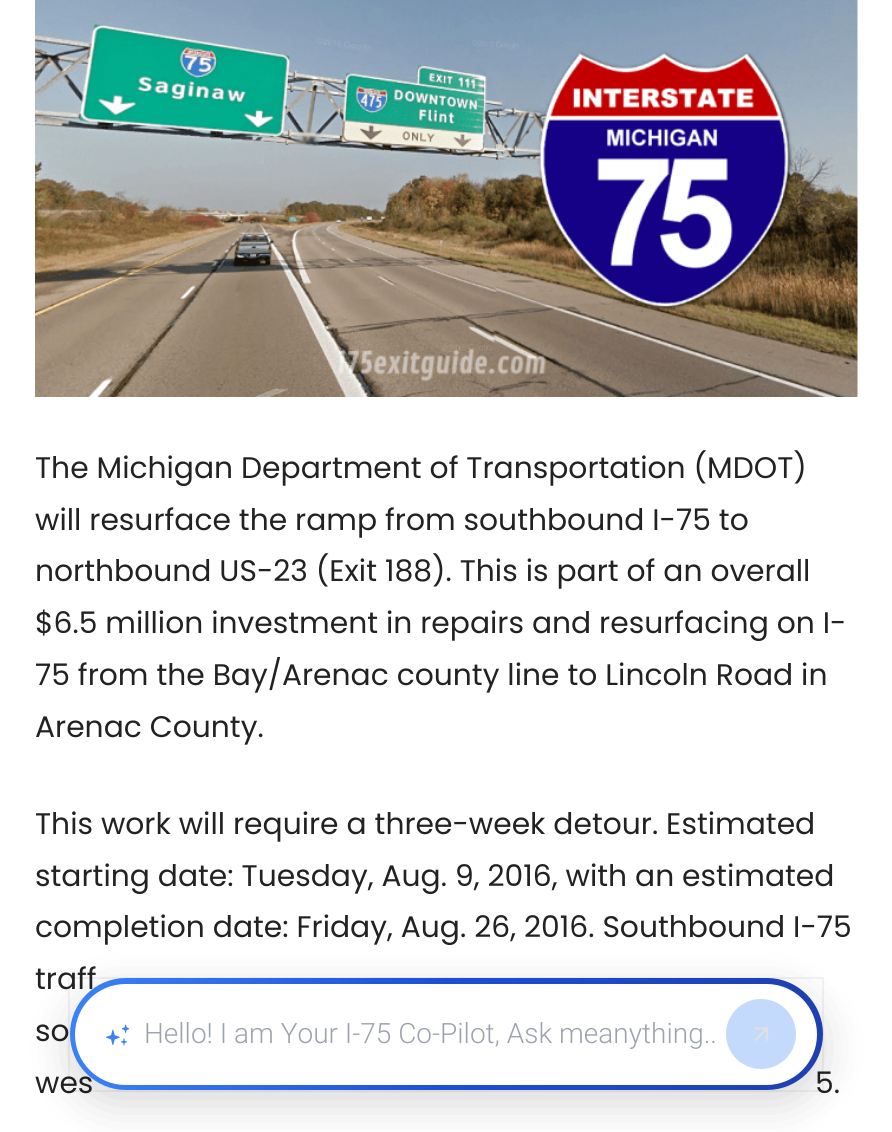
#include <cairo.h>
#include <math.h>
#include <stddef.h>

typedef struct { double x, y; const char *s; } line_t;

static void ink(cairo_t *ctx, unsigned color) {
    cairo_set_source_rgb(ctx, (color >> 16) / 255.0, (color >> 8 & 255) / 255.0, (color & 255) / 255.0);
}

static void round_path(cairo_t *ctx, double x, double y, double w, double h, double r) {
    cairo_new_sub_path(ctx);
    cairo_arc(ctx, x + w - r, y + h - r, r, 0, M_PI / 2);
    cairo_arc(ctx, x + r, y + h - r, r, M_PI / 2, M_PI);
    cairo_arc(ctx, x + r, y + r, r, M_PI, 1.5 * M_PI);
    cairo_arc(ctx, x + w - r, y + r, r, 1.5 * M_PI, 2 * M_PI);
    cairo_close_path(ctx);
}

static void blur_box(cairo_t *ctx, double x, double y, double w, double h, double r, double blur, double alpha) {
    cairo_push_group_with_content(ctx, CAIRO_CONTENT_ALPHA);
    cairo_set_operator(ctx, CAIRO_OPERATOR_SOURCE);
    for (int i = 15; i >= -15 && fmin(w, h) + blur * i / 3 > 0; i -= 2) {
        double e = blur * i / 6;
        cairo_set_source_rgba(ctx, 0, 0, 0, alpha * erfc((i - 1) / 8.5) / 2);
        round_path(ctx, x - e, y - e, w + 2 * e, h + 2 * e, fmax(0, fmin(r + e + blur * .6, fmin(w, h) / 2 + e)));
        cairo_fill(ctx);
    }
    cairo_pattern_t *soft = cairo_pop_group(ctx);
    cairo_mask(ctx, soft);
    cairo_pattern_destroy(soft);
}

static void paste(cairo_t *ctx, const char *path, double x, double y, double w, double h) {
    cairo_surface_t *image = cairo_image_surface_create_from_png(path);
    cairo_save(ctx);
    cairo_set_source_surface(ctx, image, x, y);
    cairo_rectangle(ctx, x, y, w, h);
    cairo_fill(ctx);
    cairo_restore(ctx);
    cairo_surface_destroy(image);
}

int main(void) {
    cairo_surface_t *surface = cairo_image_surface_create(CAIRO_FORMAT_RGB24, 892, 1132);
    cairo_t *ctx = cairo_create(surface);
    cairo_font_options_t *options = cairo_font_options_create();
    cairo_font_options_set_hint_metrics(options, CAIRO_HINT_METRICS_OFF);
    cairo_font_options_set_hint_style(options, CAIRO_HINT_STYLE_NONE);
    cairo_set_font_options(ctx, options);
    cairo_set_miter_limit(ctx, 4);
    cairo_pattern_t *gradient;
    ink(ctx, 0xFFFFFF);
    cairo_paint(ctx);
    paste(ctx, "media/1.png", 35, 0, 823, 397);
    cairo_select_font_face(ctx, "Poppins", CAIRO_FONT_SLANT_NORMAL, CAIRO_FONT_WEIGHT_NORMAL);
    cairo_set_font_size(ctx, 29.75);
    ink(ctx, 0x222222);
    {
        static const line_t items[] = {
            {35, 478, "The Michigan Department of Transportation (MDOT)"},
            {35, 530, "will resurface the ramp from southbound I-75 to"},
            {35, 581, "northbound US-23 (Exit 188). This is part of an overall"},
            {35, 633, "$6.5 million investment in repairs and resurfacing on I-"},
            {35, 685, "75 from the Bay/Arenac county line to Lincoln Road in"},
            {35, 737, "Arenac County."},
            {35, 834, "This work will require a three-week detour. Estimated"},
            {35, 886, "starting date: Tuesday, Aug. 9, 2016, with an estimated"},
            {35, 937, "completion date: Friday, Aug. 26, 2016. Southbound I-75"},
            {35, 989, "traff"},
            {35, 1041, "so"},
            {35, 1093, "wes"},
            {815, 1093, "5."},
        };
        for (size_t i = 0; i < sizeof items / sizeof *items; i++) {
            cairo_move_to(ctx, items[i].x, items[i].y);
            cairo_show_text(ctx, items[i].s);
        }
    }
    cairo_rectangle(ctx, 69, 978, 754, 113);
    cairo_set_source_rgba(ctx, 0, 0, 0, 0.05);
    cairo_stroke(ctx);
    ink(ctx, 0x000000);
    blur_box(ctx, 70, 992, 753, 112, 56, 22, 0.15);
    gradient = cairo_pattern_create_linear(70, 1034, 823, 1034);
    cairo_pattern_add_color_stop_rgba(gradient, 0, 0.231, 0.51, 0.965, 1);
    cairo_pattern_add_color_stop_rgba(gradient, 0.5, 0.114, 0.306, 0.847, 1);
    cairo_pattern_add_color_stop_rgba(gradient, 1, 0.118, 0.251, 0.686, 1);
    cairo_set_source(ctx, gradient);
    cairo_pattern_destroy(gradient);
    round_path(ctx, 70, 978, 753, 112, 56);
    cairo_fill(ctx);
    ink(ctx, 0xFFFFFF);
    round_path(ctx, 75, 984, 742, 101, 50.5);
    cairo_fill(ctx);
    paste(ctx, "media/2.png", 105, 1024, 25, 22);
    cairo_select_font_face(ctx, "Roboto Light", CAIRO_FONT_SLANT_NORMAL, CAIRO_FONT_WEIGHT_NORMAL);
    cairo_set_font_size(ctx, 28);
    ink(ctx, 0x9CA3AF);
    cairo_move_to(ctx, 144, 1043);
    cairo_show_text(ctx, "Hello! I am Your I-75 Co-Pilot, Ask meanything..");
    ink(ctx, 0xC4DAFC);
    cairo_new_path(ctx);
    cairo_arc(ctx, 761, 1034, 35, 0, 2 * M_PI);
    cairo_fill(ctx);
    cairo_new_path(ctx);
    cairo_move_to(ctx, 755.5, 1040);
    cairo_line_to(ctx, 767, 1028.5);
    cairo_move_to(ctx, 767, 1028.5);
    cairo_line_to(ctx, 755.5, 1028.5);
    cairo_move_to(ctx, 767, 1028.5);
    cairo_line_to(ctx, 767, 1040);
    ink(ctx, 0xE0E0E0);
    cairo_set_line_width(ctx, 2.2);
    cairo_set_line_cap(ctx, CAIRO_LINE_CAP_ROUND);
    cairo_set_line_join(ctx, CAIRO_LINE_JOIN_ROUND);
    cairo_stroke(ctx);
    cairo_surface_write_to_png(surface, "image.png");
    cairo_font_options_destroy(options);
    cairo_destroy(ctx);
    cairo_surface_destroy(surface);
    return 0;
}
